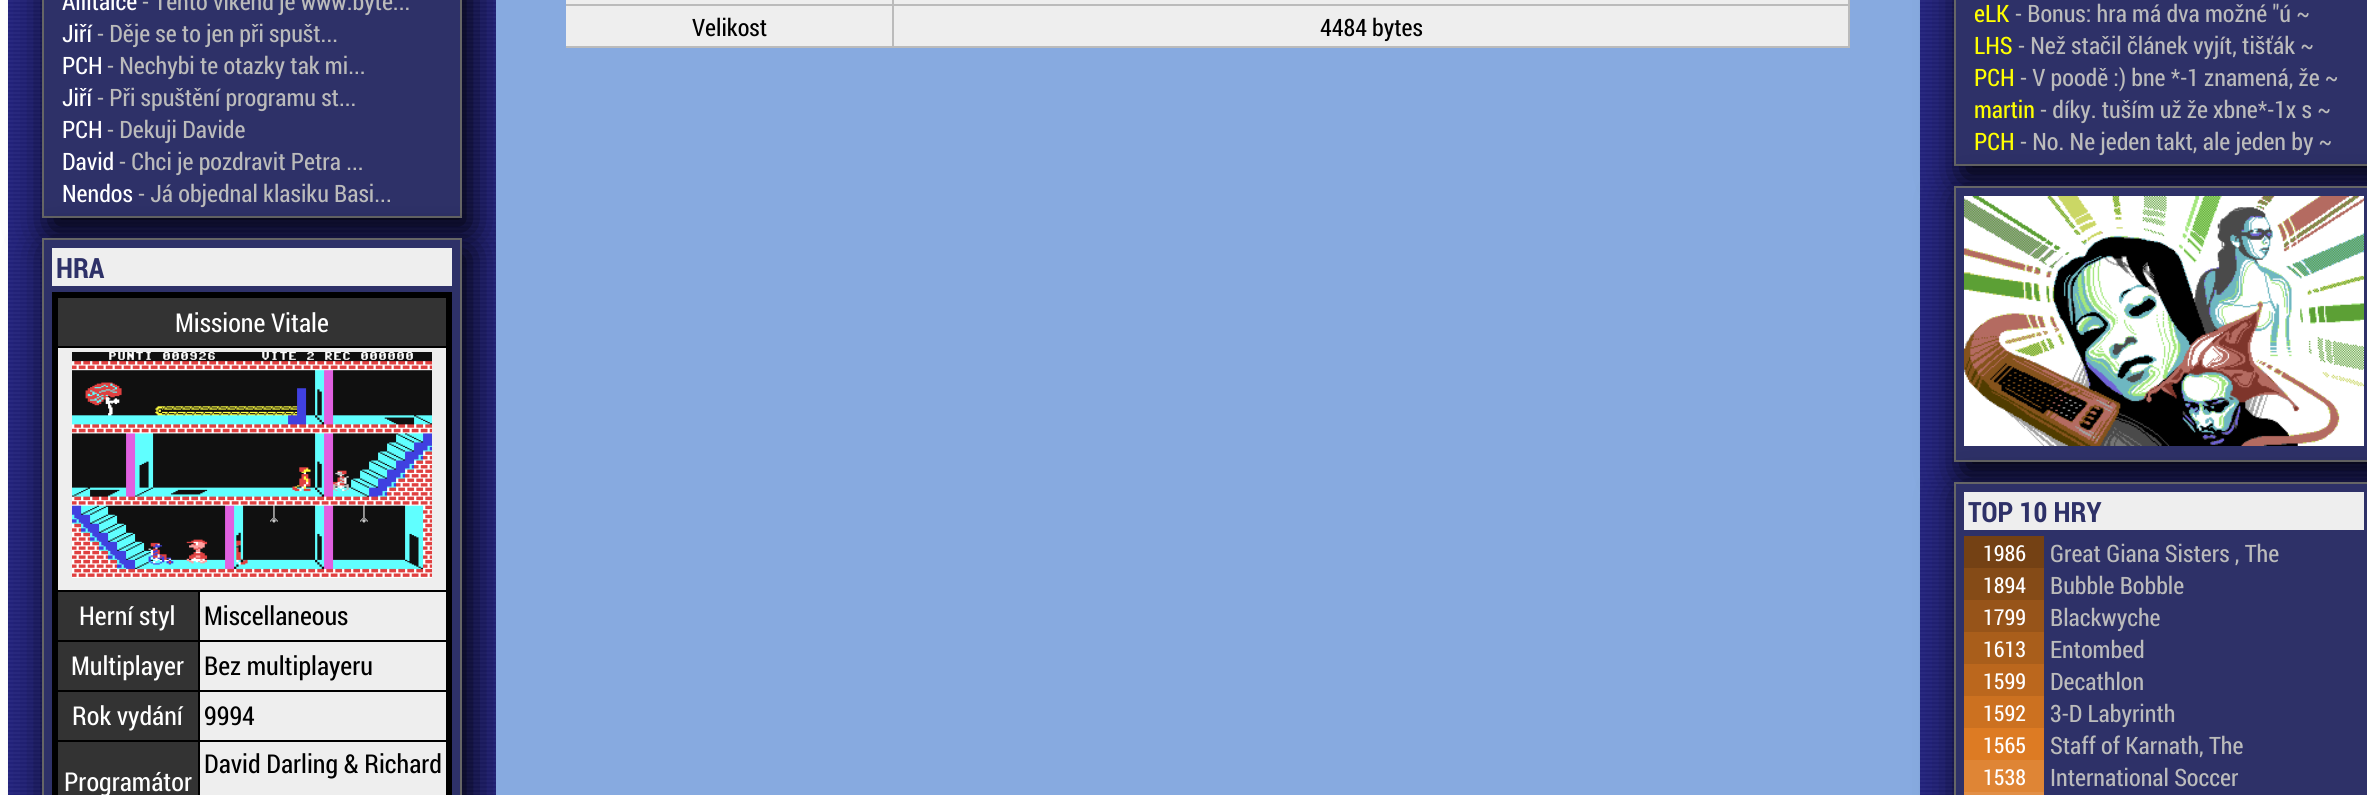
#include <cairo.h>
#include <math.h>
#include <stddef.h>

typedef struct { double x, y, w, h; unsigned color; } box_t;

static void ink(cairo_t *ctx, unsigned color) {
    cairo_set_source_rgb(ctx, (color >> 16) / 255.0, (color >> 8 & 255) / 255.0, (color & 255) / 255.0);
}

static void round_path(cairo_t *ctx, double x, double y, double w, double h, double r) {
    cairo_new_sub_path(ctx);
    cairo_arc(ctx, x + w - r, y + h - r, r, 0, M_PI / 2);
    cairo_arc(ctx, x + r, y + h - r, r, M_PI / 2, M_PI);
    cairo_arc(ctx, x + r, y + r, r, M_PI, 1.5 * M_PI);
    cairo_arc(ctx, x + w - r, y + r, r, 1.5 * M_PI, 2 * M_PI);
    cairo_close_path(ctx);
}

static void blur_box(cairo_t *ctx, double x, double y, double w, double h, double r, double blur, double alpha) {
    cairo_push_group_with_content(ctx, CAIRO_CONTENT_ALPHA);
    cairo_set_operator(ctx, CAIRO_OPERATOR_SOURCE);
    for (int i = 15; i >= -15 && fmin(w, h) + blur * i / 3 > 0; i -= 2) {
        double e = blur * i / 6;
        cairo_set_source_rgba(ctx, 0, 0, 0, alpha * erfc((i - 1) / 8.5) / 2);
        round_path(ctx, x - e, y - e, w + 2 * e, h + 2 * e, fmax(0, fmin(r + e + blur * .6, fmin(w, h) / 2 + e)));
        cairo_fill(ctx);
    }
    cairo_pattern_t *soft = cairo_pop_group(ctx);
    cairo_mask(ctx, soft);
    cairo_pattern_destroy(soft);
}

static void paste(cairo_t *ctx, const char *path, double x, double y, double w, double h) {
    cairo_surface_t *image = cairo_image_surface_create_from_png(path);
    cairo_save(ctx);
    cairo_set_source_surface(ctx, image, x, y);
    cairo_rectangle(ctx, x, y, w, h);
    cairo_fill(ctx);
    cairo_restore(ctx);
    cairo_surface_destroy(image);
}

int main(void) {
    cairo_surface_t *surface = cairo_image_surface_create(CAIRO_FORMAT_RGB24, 2367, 795);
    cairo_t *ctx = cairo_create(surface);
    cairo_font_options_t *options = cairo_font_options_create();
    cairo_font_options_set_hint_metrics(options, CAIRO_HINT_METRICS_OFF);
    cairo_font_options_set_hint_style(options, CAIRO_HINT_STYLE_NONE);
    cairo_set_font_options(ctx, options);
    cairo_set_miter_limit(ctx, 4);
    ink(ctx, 0xFFFFFF);
    cairo_paint(ctx);
    paste(ctx, "media/1.png", 8, 0, 488, 795);
    ink(ctx, 0x000000);
    blur_box(ctx, 50, -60, 420, 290, 0, 20, 1);
    ink(ctx, 0x2E3168);
    cairo_rectangle(ctx, 43, -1, 418, 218);
    cairo_fill_preserve(ctx);
    ink(ctx, 0x666666);
    cairo_stroke(ctx);
    cairo_select_font_face(ctx, "Roboto Condensed", CAIRO_FONT_SLANT_NORMAL, CAIRO_FONT_WEIGHT_NORMAL);
    cairo_set_font_size(ctx, 24);
    ink(ctx, 0xFFFFFF);
    cairo_move_to(ctx, 62, 10);
    cairo_show_text(ctx, "Allitaice");
    ink(ctx, 0xBBBBBB);
    cairo_move_to(ctx, 142, 10);
    cairo_show_text(ctx, "- Tento vikend je www.byte...");
    ink(ctx, 0xFFFFFF);
    cairo_move_to(ctx, 62, 42);
    cairo_show_text(ctx, "Jiří");
    ink(ctx, 0xBBBBBB);
    cairo_move_to(ctx, 97, 42);
    cairo_show_text(ctx, "- Děje se to jen při spušt...");
    ink(ctx, 0xFFFFFF);
    cairo_move_to(ctx, 62, 74);
    cairo_show_text(ctx, "PCH");
    ink(ctx, 0xBBBBBB);
    cairo_move_to(ctx, 107, 74);
    cairo_show_text(ctx, "- Nechybi te otazky tak mi...");
    ink(ctx, 0xFFFFFF);
    cairo_move_to(ctx, 62, 106);
    cairo_show_text(ctx, "Jiří");
    ink(ctx, 0xBBBBBB);
    cairo_move_to(ctx, 97, 106);
    cairo_show_text(ctx, "- Při spuštění programu st...");
    ink(ctx, 0xFFFFFF);
    cairo_move_to(ctx, 62, 138);
    cairo_show_text(ctx, "PCH");
    ink(ctx, 0xBBBBBB);
    cairo_move_to(ctx, 107, 138);
    cairo_show_text(ctx, "- Dekuji Davide");
    ink(ctx, 0xFFFFFF);
    cairo_move_to(ctx, 62, 170);
    cairo_show_text(ctx, "David");
    ink(ctx, 0xBBBBBB);
    cairo_move_to(ctx, 119, 170);
    cairo_show_text(ctx, "- Chci je pozdravit Petra ...");
    ink(ctx, 0x000000);
    blur_box(ctx, 50, 250, 420, 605, 0, 20, 1);
    ink(ctx, 0xFFFFFF);
    cairo_move_to(ctx, 62, 202);
    cairo_show_text(ctx, "Nendos");
    ink(ctx, 0xBBBBBB);
    cairo_move_to(ctx, 138, 202);
    cairo_show_text(ctx, "- Já objednal klasiku Basi...");
    ink(ctx, 0x2E3168);
    cairo_rectangle(ctx, 43, 239, 418, 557);
    cairo_fill_preserve(ctx);
    ink(ctx, 0x666666);
    cairo_stroke(ctx);
    ink(ctx, 0xEEEEEE);
    cairo_rectangle(ctx, 52, 248, 400, 38);
    cairo_fill(ctx);
    cairo_select_font_face(ctx, "Roboto Condensed", CAIRO_FONT_SLANT_NORMAL, CAIRO_FONT_WEIGHT_BOLD);
    cairo_set_font_size(ctx, 28);
    ink(ctx, 0x2E3168);
    cairo_move_to(ctx, 56, 278);
    cairo_show_text(ctx, "HRA");
    {
        static const box_t items[] = {
            {58, 348, 388, 447, 0xEEEEEE},
            {52, 292, 400, 6, 0x000000},
            {54, 346, 396, 2, 0x000000},
            {198, 590, 252, 2, 0x000000},
            {198, 640, 252, 2, 0x000000},
            {198, 690, 252, 2, 0x000000},
            {198, 740, 252, 2, 0x000000},
            {446, 292, 6, 503, 0x000000},
            {198, 740, 2, 55, 0x000000},
            {54, 740, 146, 2, 0x000000},
            {198, 690, 2, 52, 0x000000},
            {54, 690, 146, 2, 0x000000},
            {198, 640, 2, 52, 0x000000},
            {54, 640, 146, 2, 0x000000},
            {198, 590, 2, 52, 0x000000},
            {54, 590, 146, 2, 0x000000},
            {52, 292, 6, 503, 0x000000},
            {58, 298, 388, 48, 0x333333},
        };
        for (size_t i = 0; i < sizeof items / sizeof *items; i++) {
            ink(ctx, items[i].color);
            cairo_rectangle(ctx, items[i].x, items[i].y, items[i].w, items[i].h);
            cairo_fill(ctx);
        }
    }
    cairo_select_font_face(ctx, "Roboto Condensed", CAIRO_FONT_SLANT_NORMAL, CAIRO_FONT_WEIGHT_NORMAL);
    cairo_set_font_size(ctx, 26);
    ink(ctx, 0xFFFFFF);
    cairo_move_to(ctx, 175, 332);
    cairo_show_text(ctx, "Missione Vitale");
    paste(ctx, "media/2.png", 72, 352, 360, 226);
    ink(ctx, 0x333333);
    cairo_rectangle(ctx, 58, 592, 140, 48);
    cairo_fill(ctx);
    ink(ctx, 0xFFFFFF);
    cairo_move_to(ctx, 79, 625);
    cairo_show_text(ctx, "Herní styl");
    ink(ctx, 0x000000);
    cairo_move_to(ctx, 204, 625);
    cairo_show_text(ctx, "Miscellaneous");
    ink(ctx, 0x333333);
    cairo_rectangle(ctx, 58, 642, 140, 48);
    cairo_fill(ctx);
    ink(ctx, 0xFFFFFF);
    cairo_move_to(ctx, 71, 675);
    cairo_show_text(ctx, "Multiplayer");
    ink(ctx, 0x000000);
    cairo_move_to(ctx, 204, 675);
    cairo_show_text(ctx, "Bez multiplayeru");
    ink(ctx, 0x333333);
    cairo_rectangle(ctx, 58, 692, 140, 48);
    cairo_fill(ctx);
    ink(ctx, 0xFFFFFF);
    cairo_move_to(ctx, 72, 725);
    cairo_show_text(ctx, "Rok vydání");
    ink(ctx, 0x000000);
    cairo_move_to(ctx, 204, 725);
    cairo_show_text(ctx, "9994");
    cairo_move_to(ctx, 204, 773);
    cairo_show_text(ctx, "David Darling & Richard");
    ink(ctx, 0x333333);
    cairo_rectangle(ctx, 58, 742, 140, 53);
    cairo_fill(ctx);
    ink(ctx, 0xFFFFFF);
    cairo_move_to(ctx, 64, 791);
    cairo_show_text(ctx, "Programátor");
    {
        static const box_t items[] = {
            {496, 0, 1424, 795, 0x87AAE0},
            {566, 0, 1284, 4, 0xEEEEEE},
            {892, 0, 2, 48, 0xBBBBBB},
            {566, 4, 328, 2, 0xBBBBBB},
            {1848, 0, 2, 48, 0xBBBBBB},
            {894, 4, 956, 2, 0xBBBBBB},
            {566, 6, 326, 40, 0xEEEEEE},
            {566, 46, 1284, 2, 0xBBBBBB},
        };
        for (size_t i = 0; i < sizeof items / sizeof *items; i++) {
            ink(ctx, items[i].color);
            cairo_rectangle(ctx, items[i].x, items[i].y, items[i].w, items[i].h);
            cairo_fill(ctx);
        }
    }
    cairo_set_font_size(ctx, 24);
    ink(ctx, 0x000000);
    cairo_move_to(ctx, 692, 36);
    cairo_show_text(ctx, "Velikost");
    ink(ctx, 0xEEEEEE);
    cairo_rectangle(ctx, 894, 6, 954, 40);
    cairo_fill(ctx);
    ink(ctx, 0x000000);
    cairo_move_to(ctx, 1320, 36);
    cairo_show_text(ctx, "4484 bytes");
    paste(ctx, "media/3.png", 1920, 0, 447, 795);
    ink(ctx, 0x000000);
    blur_box(ctx, 1962, -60, 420, 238, 0, 20, 1);
    ink(ctx, 0x2E3168);
    cairo_rectangle(ctx, 1955, -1, 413, 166);
    cairo_fill_preserve(ctx);
    ink(ctx, 0x666666);
    cairo_stroke(ctx);
    ink(ctx, 0xFFFF00);
    cairo_move_to(ctx, 1974, 22);
    cairo_show_text(ctx, "eLK");
    ink(ctx, 0xBBBBBB);
    cairo_move_to(ctx, 2015, 22);
    cairo_show_text(ctx, "- Bonus: hra má dva možné \"ú ~");
    ink(ctx, 0xFFFF00);
    cairo_move_to(ctx, 1974, 54);
    cairo_show_text(ctx, "LHS");
    ink(ctx, 0xBBBBBB);
    cairo_move_to(ctx, 2018, 54);
    cairo_show_text(ctx, "- Než stačil článek vyjít, tišťák ~");
    ink(ctx, 0xFFFF00);
    cairo_move_to(ctx, 1974, 86);
    cairo_show_text(ctx, "PCH");
    ink(ctx, 0xBBBBBB);
    cairo_move_to(ctx, 2020, 86);
    cairo_show_text(ctx, "- V poodě :) bne *-1 znamená, že ~");
    ink(ctx, 0xFFFF00);
    cairo_move_to(ctx, 1974, 118);
    cairo_show_text(ctx, "martin");
    ink(ctx, 0xBBBBBB);
    cairo_move_to(ctx, 2040, 118);
    cairo_show_text(ctx, "- díky. tuším už že xbne*-1x s ~");
    ink(ctx, 0x000000);
    blur_box(ctx, 1962, 198, 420, 276, 0, 20, 1);
    ink(ctx, 0xFFFF00);
    cairo_move_to(ctx, 1974, 150);
    cairo_show_text(ctx, "PCH");
    ink(ctx, 0xBBBBBB);
    cairo_move_to(ctx, 2020, 150);
    cairo_show_text(ctx, "- No. Ne jeden takt, ale jeden by ~");
    ink(ctx, 0x2E3168);
    cairo_rectangle(ctx, 1955, 187, 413, 274);
    cairo_fill_preserve(ctx);
    ink(ctx, 0x666666);
    cairo_stroke(ctx);
    ink(ctx, 0x000000);
    blur_box(ctx, 1962, 494, 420, 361, 0, 20, 1);
    paste(ctx, "media/4.png", 1964, 196, 400, 250);
    ink(ctx, 0x2E3168);
    cairo_rectangle(ctx, 1955, 483, 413, 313);
    cairo_fill_preserve(ctx);
    ink(ctx, 0x666666);
    cairo_stroke(ctx);
    ink(ctx, 0xEEEEEE);
    cairo_rectangle(ctx, 1964, 492, 400, 38);
    cairo_fill(ctx);
    cairo_select_font_face(ctx, "Roboto Condensed", CAIRO_FONT_SLANT_NORMAL, CAIRO_FONT_WEIGHT_BOLD);
    cairo_set_font_size(ctx, 28);
    ink(ctx, 0x2E3168);
    cairo_move_to(ctx, 1968, 522);
    cairo_show_text(ctx, "TOP 10 HRY");
    ink(ctx, 0x744114);
    cairo_rectangle(ctx, 1964, 536, 80, 32);
    cairo_fill(ctx);
    cairo_select_font_face(ctx, "Roboto Condensed", CAIRO_FONT_SLANT_NORMAL, CAIRO_FONT_WEIGHT_NORMAL);
    cairo_set_font_size(ctx, 22);
    ink(ctx, 0xFFFFFF);
    cairo_move_to(ctx, 1983, 561);
    cairo_show_text(ctx, "1986");
    cairo_set_font_size(ctx, 24);
    ink(ctx, 0xBBBBBB);
    cairo_move_to(ctx, 2050, 562);
    cairo_show_text(ctx, "Great Giana Sisters , The");
    ink(ctx, 0x854B17);
    cairo_rectangle(ctx, 1964, 568, 80, 32);
    cairo_fill(ctx);
    cairo_set_font_size(ctx, 22);
    ink(ctx, 0xFFFFFF);
    cairo_move_to(ctx, 1983, 593);
    cairo_show_text(ctx, "1894");
    cairo_set_font_size(ctx, 24);
    ink(ctx, 0xBBBBBB);
    cairo_move_to(ctx, 2050, 594);
    cairo_show_text(ctx, "Bubble Bobble");
    ink(ctx, 0x975419);
    cairo_rectangle(ctx, 1964, 600, 80, 32);
    cairo_fill(ctx);
    cairo_set_font_size(ctx, 22);
    ink(ctx, 0xFFFFFF);
    cairo_move_to(ctx, 1983, 625);
    cairo_show_text(ctx, "1799");
    cairo_set_font_size(ctx, 24);
    ink(ctx, 0xBBBBBB);
    cairo_move_to(ctx, 2050, 626);
    cairo_show_text(ctx, "Blackwyche");
    ink(ctx, 0xA95E1B);
    cairo_rectangle(ctx, 1964, 632, 80, 32);
    cairo_fill(ctx);
    cairo_set_font_size(ctx, 22);
    ink(ctx, 0xFFFFFF);
    cairo_move_to(ctx, 1983, 657);
    cairo_show_text(ctx, "1613");
    cairo_set_font_size(ctx, 24);
    ink(ctx, 0xBBBBBB);
    cairo_move_to(ctx, 2050, 658);
    cairo_show_text(ctx, "Entombed");
    ink(ctx, 0xBB671D);
    cairo_rectangle(ctx, 1964, 664, 80, 32);
    cairo_fill(ctx);
    cairo_set_font_size(ctx, 22);
    ink(ctx, 0xFFFFFF);
    cairo_move_to(ctx, 1983, 689);
    cairo_show_text(ctx, "1599");
    cairo_set_font_size(ctx, 24);
    ink(ctx, 0xBBBBBB);
    cairo_move_to(ctx, 2050, 690);
    cairo_show_text(ctx, "Decathlon");
    ink(ctx, 0xCC7120);
    cairo_rectangle(ctx, 1964, 696, 80, 32);
    cairo_fill(ctx);
    cairo_set_font_size(ctx, 22);
    ink(ctx, 0xFFFFFF);
    cairo_move_to(ctx, 1983, 721);
    cairo_show_text(ctx, "1592");
    cairo_set_font_size(ctx, 24);
    ink(ctx, 0xBBBBBB);
    cairo_move_to(ctx, 2050, 722);
    cairo_show_text(ctx, "3-D Labyrinth");
    ink(ctx, 0xDD7B23);
    cairo_rectangle(ctx, 1964, 728, 80, 32);
    cairo_fill(ctx);
    cairo_set_font_size(ctx, 22);
    ink(ctx, 0xFFFFFF);
    cairo_move_to(ctx, 1983, 753);
    cairo_show_text(ctx, "1565");
    cairo_set_font_size(ctx, 24);
    ink(ctx, 0xBBBBBB);
    cairo_move_to(ctx, 2050, 754);
    cairo_show_text(ctx, "Staff of Karnath, The");
    ink(ctx, 0xDF8535);
    cairo_rectangle(ctx, 1964, 760, 80, 32);
    cairo_fill(ctx);
    cairo_set_font_size(ctx, 22);
    ink(ctx, 0xFFFFFF);
    cairo_move_to(ctx, 1983, 785);
    cairo_show_text(ctx, "1538");
    cairo_set_font_size(ctx, 24);
    ink(ctx, 0xBBBBBB);
    cairo_move_to(ctx, 2050, 786);
    cairo_show_text(ctx, "International Soccer");
    ink(ctx, 0xE28F46);
    cairo_rectangle(ctx, 1964, 792, 80, 3);
    cairo_fill(ctx);
    cairo_surface_write_to_png(surface, "image.png");
    cairo_font_options_destroy(options);
    cairo_destroy(ctx);
    cairo_surface_destroy(surface);
    return 0;
}
